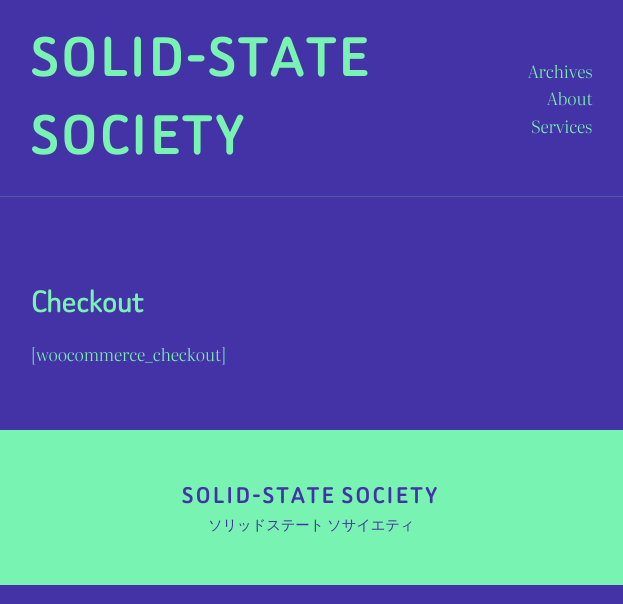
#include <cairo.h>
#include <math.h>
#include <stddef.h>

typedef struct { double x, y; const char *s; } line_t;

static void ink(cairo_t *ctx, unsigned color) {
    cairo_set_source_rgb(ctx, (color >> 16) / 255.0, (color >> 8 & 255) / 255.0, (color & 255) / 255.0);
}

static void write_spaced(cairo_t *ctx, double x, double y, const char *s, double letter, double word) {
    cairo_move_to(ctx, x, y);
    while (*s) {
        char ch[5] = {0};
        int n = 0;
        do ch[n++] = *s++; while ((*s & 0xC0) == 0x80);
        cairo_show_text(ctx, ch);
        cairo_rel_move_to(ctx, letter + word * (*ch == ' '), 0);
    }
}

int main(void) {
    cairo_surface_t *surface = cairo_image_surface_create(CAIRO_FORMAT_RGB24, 623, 604);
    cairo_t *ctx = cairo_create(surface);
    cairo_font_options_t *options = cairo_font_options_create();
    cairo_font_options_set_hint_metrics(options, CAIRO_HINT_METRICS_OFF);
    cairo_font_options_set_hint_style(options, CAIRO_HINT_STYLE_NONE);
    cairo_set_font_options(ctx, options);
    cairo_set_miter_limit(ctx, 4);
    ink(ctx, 0x4433A6);
    cairo_paint(ctx);
    ink(ctx, 0x4F59A8);
    cairo_rectangle(ctx, 0, 196, 623, 1);
    cairo_fill(ctx);
    cairo_select_font_face(ctx, "Beiruti SemiBold", CAIRO_FONT_SLANT_NORMAL, CAIRO_FONT_WEIGHT_NORMAL);
    cairo_set_font_size(ctx, 65);
    ink(ctx, 0x79F3B1);
    write_spaced(ctx, 31, 76, "SOLID-STATE", 2.4, 0);
    write_spaced(ctx, 31, 154, "SOCIETY", 2.4, 0);
    cairo_select_font_face(ctx, "Literata Light", CAIRO_FONT_SLANT_NORMAL, CAIRO_FONT_WEIGHT_NORMAL);
    cairo_set_font_size(ctx, 17);
    {
        static const line_t items[] = {
            {528, 78, "Archives"},
            {547, 105, "About"},
            {531, 133, "Services"},
        };
        for (size_t i = 0; i < sizeof items / sizeof *items; i++) {
            write_spaced(ctx, items[i].x, items[i].y, items[i].s, -0.2, 0);
        }
    }
    cairo_select_font_face(ctx, "Beiruti Medium", CAIRO_FONT_SLANT_NORMAL, CAIRO_FONT_WEIGHT_NORMAL);
    cairo_set_font_size(ctx, 36);
    write_spaced(ctx, 31, 312, "Checkout", -0.75, 0);
    cairo_select_font_face(ctx, "Literata Light", CAIRO_FONT_SLANT_NORMAL, CAIRO_FONT_WEIGHT_NORMAL);
    cairo_set_font_size(ctx, 17);
    write_spaced(ctx, 31, 361, "[woocommerce_checkout]", -0.2, 0);
    cairo_rectangle(ctx, 0, 430, 623, 155);
    cairo_fill(ctx);
    cairo_select_font_face(ctx, "Beiruti SemiBold", CAIRO_FONT_SLANT_NORMAL, CAIRO_FONT_WEIGHT_NORMAL);
    cairo_set_font_size(ctx, 26.5);
    ink(ctx, 0x4433A6);
    write_spaced(ctx, 182, 503, "SOLID-STATE SOCIETY", 2.4, 0);
    cairo_select_font_face(ctx, "WenQuanYi Zen Hei Medium", CAIRO_FONT_SLANT_NORMAL, CAIRO_FONT_WEIGHT_NORMAL);
    cairo_set_font_size(ctx, 14.4);
    write_spaced(ctx, 208, 530, "ソリッドステート ソサイエティ", -0.2, -1);
    cairo_surface_write_to_png(surface, "image.png");
    cairo_font_options_destroy(options);
    cairo_destroy(ctx);
    cairo_surface_destroy(surface);
    return 0;
}
